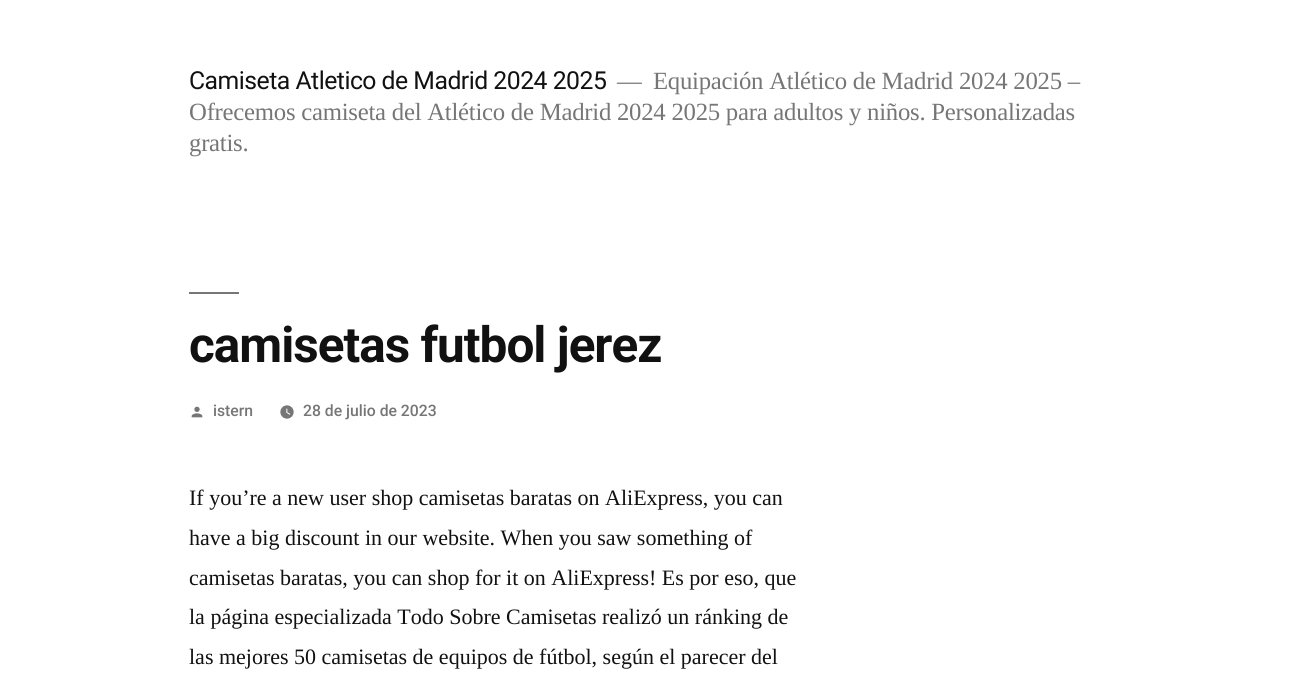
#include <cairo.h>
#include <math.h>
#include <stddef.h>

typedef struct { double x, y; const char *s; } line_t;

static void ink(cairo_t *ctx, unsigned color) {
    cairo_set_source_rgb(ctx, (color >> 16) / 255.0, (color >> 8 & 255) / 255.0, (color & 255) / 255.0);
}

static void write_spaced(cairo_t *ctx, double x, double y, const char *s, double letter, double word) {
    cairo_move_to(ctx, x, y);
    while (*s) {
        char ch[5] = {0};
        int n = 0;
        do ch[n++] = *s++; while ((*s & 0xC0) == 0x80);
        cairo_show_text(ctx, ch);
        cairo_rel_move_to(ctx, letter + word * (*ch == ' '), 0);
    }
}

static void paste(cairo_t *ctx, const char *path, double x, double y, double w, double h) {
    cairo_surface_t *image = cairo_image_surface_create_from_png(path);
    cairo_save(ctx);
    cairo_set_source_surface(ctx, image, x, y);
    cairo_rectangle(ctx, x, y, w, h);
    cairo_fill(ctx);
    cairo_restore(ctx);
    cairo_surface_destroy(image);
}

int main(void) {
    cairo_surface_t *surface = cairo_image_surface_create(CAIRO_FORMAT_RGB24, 1294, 674);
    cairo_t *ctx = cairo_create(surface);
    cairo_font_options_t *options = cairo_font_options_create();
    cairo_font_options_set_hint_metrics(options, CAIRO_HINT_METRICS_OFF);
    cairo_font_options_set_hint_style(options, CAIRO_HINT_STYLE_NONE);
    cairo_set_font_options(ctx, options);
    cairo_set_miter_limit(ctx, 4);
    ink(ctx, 0xFFFFFF);
    cairo_paint(ctx);
    cairo_select_font_face(ctx, "Roboto", CAIRO_FONT_SLANT_NORMAL, CAIRO_FONT_WEIGHT_NORMAL);
    cairo_set_font_size(ctx, 24.75);
    ink(ctx, 0x111111);
    write_spaced(ctx, 189, 89, "Camiseta Atletico de Madrid 2024 2025", -0.5, 0);
    cairo_select_font_face(ctx, "Liberation Serif", CAIRO_FONT_SLANT_NORMAL, CAIRO_FONT_WEIGHT_NORMAL);
    ink(ctx, 0x767676);
    {
        static const line_t items[] = {
            {617, 89, "—"},
            {653, 89, "Equipación Atlético de Madrid 2024 2025 –"},
            {189, 120, "Ofrecemos camiseta del Atlético de Madrid 2024 2025 para adultos y niños. Personalizadas"},
            {189, 151, "gratis."},
        };
        for (size_t i = 0; i < sizeof items / sizeof *items; i++) {
            write_spaced(ctx, items[i].x, items[i].y, items[i].s, -0.25, 0);
        }
    }
    cairo_rectangle(ctx, 189, 292, 50, 2);
    cairo_fill(ctx);
    cairo_select_font_face(ctx, "Roboto", CAIRO_FONT_SLANT_NORMAL, CAIRO_FONT_WEIGHT_BOLD);
    cairo_set_font_size(ctx, 49.5);
    ink(ctx, 0x111111);
    write_spaced(ctx, 189, 362, "camisetas futbol jerez", -1, 0);
    paste(ctx, "media/1.png", 191, 406, 12, 12);
    cairo_select_font_face(ctx, "Roboto Medium", CAIRO_FONT_SLANT_NORMAL, CAIRO_FONT_WEIGHT_NORMAL);
    cairo_set_font_size(ctx, 15.75);
    ink(ctx, 0x767676);
    cairo_move_to(ctx, 213, 416);
    cairo_show_text(ctx, "istern");
    paste(ctx, "media/2.png", 280, 405, 14, 14);
    cairo_move_to(ctx, 303, 416);
    cairo_show_text(ctx, "28 de julio de 2023");
    cairo_select_font_face(ctx, "Liberation Serif", CAIRO_FONT_SLANT_NORMAL, CAIRO_FONT_WEIGHT_NORMAL);
    cairo_set_font_size(ctx, 22);
    ink(ctx, 0x111111);
    {
        static const line_t items[] = {
            {189, 505, "If you’re a new user shop camisetas baratas on AliExpress, you can"},
            {189, 545, "have a big discount in our website. When you saw something of"},
            {189, 585, "camisetas baratas, you can shop for it on AliExpress! Es por eso, que"},
            {189, 624, "la página especializada Todo Sobre Camisetas realizó un ránking de"},
            {189, 664, "las mejores 50 camisetas de equipos de fútbol, según el parecer del"},
        };
        for (size_t i = 0; i < sizeof items / sizeof *items; i++) {
            cairo_move_to(ctx, items[i].x, items[i].y);
            cairo_show_text(ctx, items[i].s);
        }
    }
    cairo_surface_write_to_png(surface, "image.png");
    cairo_font_options_destroy(options);
    cairo_destroy(ctx);
    cairo_surface_destroy(surface);
    return 0;
}
